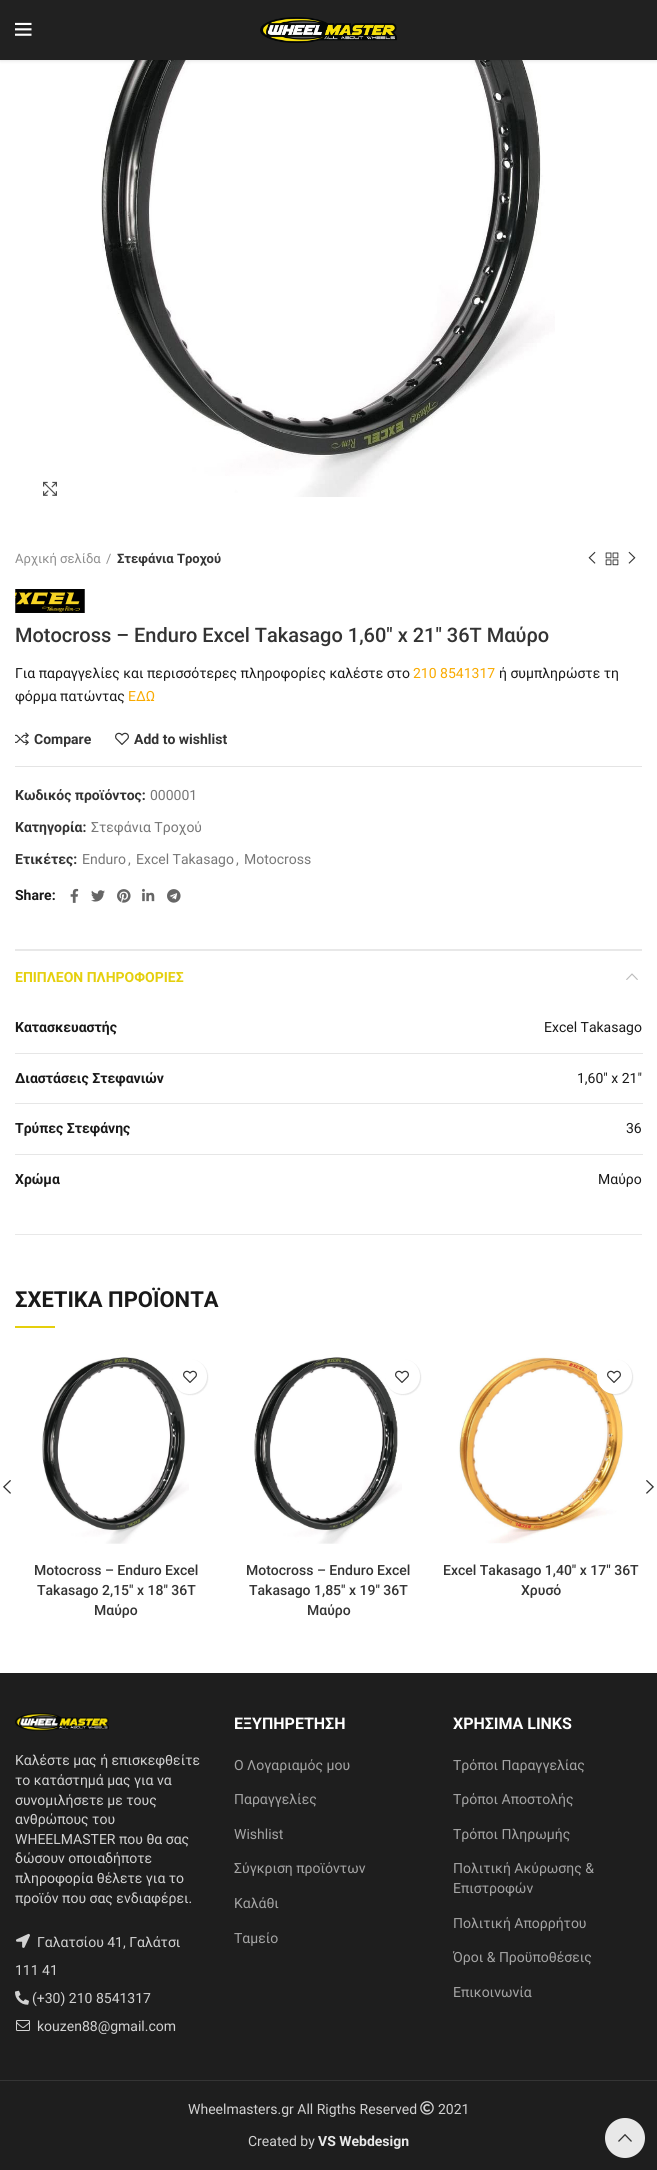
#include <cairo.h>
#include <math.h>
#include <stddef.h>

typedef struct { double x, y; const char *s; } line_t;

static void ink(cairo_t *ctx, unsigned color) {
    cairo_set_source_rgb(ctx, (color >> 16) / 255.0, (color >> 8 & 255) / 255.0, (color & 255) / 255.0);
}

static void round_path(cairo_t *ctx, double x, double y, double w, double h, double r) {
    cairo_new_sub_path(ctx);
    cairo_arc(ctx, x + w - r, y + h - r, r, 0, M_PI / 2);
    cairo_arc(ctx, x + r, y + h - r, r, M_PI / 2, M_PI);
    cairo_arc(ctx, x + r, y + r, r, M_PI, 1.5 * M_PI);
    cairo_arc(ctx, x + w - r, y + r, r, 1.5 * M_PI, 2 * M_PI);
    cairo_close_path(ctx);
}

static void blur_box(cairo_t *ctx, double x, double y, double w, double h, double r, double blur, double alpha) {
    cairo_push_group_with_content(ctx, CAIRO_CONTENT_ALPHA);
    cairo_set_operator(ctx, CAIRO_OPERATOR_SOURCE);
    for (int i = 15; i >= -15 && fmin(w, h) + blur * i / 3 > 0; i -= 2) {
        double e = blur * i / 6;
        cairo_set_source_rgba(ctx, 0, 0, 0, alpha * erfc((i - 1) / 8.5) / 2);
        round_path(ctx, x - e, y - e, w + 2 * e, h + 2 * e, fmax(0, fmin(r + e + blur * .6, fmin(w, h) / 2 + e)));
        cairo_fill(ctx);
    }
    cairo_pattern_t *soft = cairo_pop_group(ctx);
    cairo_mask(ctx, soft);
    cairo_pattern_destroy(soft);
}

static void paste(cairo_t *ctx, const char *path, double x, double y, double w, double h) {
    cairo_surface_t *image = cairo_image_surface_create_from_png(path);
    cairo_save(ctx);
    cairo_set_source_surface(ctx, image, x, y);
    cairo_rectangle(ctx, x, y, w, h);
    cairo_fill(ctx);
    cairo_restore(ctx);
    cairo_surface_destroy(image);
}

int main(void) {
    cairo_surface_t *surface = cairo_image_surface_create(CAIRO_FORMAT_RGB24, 657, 2170);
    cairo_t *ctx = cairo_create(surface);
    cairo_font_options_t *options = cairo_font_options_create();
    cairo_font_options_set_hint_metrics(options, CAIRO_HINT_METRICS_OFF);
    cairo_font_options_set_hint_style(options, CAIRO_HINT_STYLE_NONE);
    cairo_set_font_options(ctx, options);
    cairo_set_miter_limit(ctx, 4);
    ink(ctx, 0xFFFFFF);
    cairo_paint(ctx);
    paste(ctx, "media/4.png", 101, 60, 454, 437);
    ink(ctx, 0x000000);
    blur_box(ctx, 0, 1, 657, 60, 0, 1.5, 0.1);
    ink(ctx, 0x212121);
    cairo_rectangle(ctx, 0, 0, 657, 60);
    cairo_fill(ctx);
    paste(ctx, "media/1.png", 15, 22, 17, 14);
    paste(ctx, "media/2.png", 260, 17, 137, 26);
    paste(ctx, "media/3.png", 43, 481, 14, 15);
    cairo_select_font_face(ctx, "Roboto", CAIRO_FONT_SLANT_NORMAL, CAIRO_FONT_WEIGHT_NORMAL);
    cairo_set_font_size(ctx, 13);
    ink(ctx, 0x8E8E8E);
    cairo_move_to(ctx, 15, 563);
    cairo_show_text(ctx, "Αρχική σελίδα");
    cairo_move_to(ctx, 106, 563);
    cairo_show_text(ctx, "/");
    cairo_select_font_face(ctx, "Roboto", CAIRO_FONT_SLANT_NORMAL, CAIRO_FONT_WEIGHT_BOLD);
    ink(ctx, 0x333333);
    cairo_move_to(ctx, 117, 563);
    cairo_show_text(ctx, "Στεφάνια Τροχού");
    paste(ctx, "media/5.png", 588, 551, 8, 13);
    paste(ctx, "media/6.png", 605, 552, 14, 14);
    paste(ctx, "media/7.png", 628, 551, 8, 13);
    paste(ctx, "media/8.png", 15, 589, 70, 24);
    cairo_select_font_face(ctx, "Roboto Medium", CAIRO_FONT_SLANT_NORMAL, CAIRO_FONT_WEIGHT_NORMAL);
    cairo_set_font_size(ctx, 20);
    cairo_move_to(ctx, 15, 642);
    cairo_show_text(ctx, "Motocross – Enduro Excel Takasago 1,60″ x 21″ 36Τ Μαύρο");
    cairo_select_font_face(ctx, "Roboto", CAIRO_FONT_SLANT_NORMAL, CAIRO_FONT_WEIGHT_NORMAL);
    cairo_set_font_size(ctx, 14);
    ink(ctx, 0x191919);
    cairo_move_to(ctx, 15, 678);
    cairo_show_text(ctx, "Για παραγγελίες και περισσότερες πληροφορίες καλέστε στο");
    ink(ctx, 0xF9AA00);
    cairo_move_to(ctx, 413, 678);
    cairo_show_text(ctx, "210 8541317");
    ink(ctx, 0x191919);
    cairo_move_to(ctx, 499, 678);
    cairo_show_text(ctx, "ή συμπληρώστε τη");
    cairo_move_to(ctx, 15, 701);
    cairo_show_text(ctx, "φόρμα πατώντας");
    ink(ctx, 0xF9AA00);
    cairo_move_to(ctx, 128, 701);
    cairo_show_text(ctx, "ΕΔΩ");
    paste(ctx, "media/9.png", 15, 732, 14, 14);
    cairo_select_font_face(ctx, "Roboto", CAIRO_FONT_SLANT_NORMAL, CAIRO_FONT_WEIGHT_BOLD);
    ink(ctx, 0x333333);
    cairo_move_to(ctx, 34, 744);
    cairo_show_text(ctx, "Compare");
    paste(ctx, "media/10.png", 115, 732, 14, 13);
    cairo_move_to(ctx, 134, 744);
    cairo_show_text(ctx, "Add to wishlist");
    ink(ctx, 0xE4E4E4);
    cairo_rectangle(ctx, 15, 766, 627, 1);
    cairo_fill(ctx);
    ink(ctx, 0x333333);
    cairo_move_to(ctx, 15, 800);
    cairo_show_text(ctx, "Κωδικός προϊόντος:");
    cairo_select_font_face(ctx, "Roboto", CAIRO_FONT_SLANT_NORMAL, CAIRO_FONT_WEIGHT_NORMAL);
    ink(ctx, 0x777777);
    cairo_move_to(ctx, 150, 800);
    cairo_show_text(ctx, "000001");
    cairo_select_font_face(ctx, "Roboto", CAIRO_FONT_SLANT_NORMAL, CAIRO_FONT_WEIGHT_BOLD);
    ink(ctx, 0x333333);
    cairo_move_to(ctx, 15, 832);
    cairo_show_text(ctx, "Κατηγορία:");
    cairo_select_font_face(ctx, "Roboto", CAIRO_FONT_SLANT_NORMAL, CAIRO_FONT_WEIGHT_NORMAL);
    ink(ctx, 0x777777);
    cairo_move_to(ctx, 91, 832);
    cairo_show_text(ctx, "Στεφάνια Τροχού");
    cairo_select_font_face(ctx, "Roboto", CAIRO_FONT_SLANT_NORMAL, CAIRO_FONT_WEIGHT_BOLD);
    ink(ctx, 0x333333);
    cairo_move_to(ctx, 15, 864);
    cairo_show_text(ctx, "Ετικέτες:");
    cairo_select_font_face(ctx, "Roboto", CAIRO_FONT_SLANT_NORMAL, CAIRO_FONT_WEIGHT_NORMAL);
    ink(ctx, 0x777777);
    {
        static const line_t items[] = {
            {82, 864, "Enduro"},
            {128, 864, ","},
            {136, 864, "Excel Takasago"},
            {236, 864, ","},
            {244, 864, "Motocross"},
        };
        for (size_t i = 0; i < sizeof items / sizeof *items; i++) {
            cairo_move_to(ctx, items[i].x, items[i].y);
            cairo_show_text(ctx, items[i].s);
        }
    }
    cairo_select_font_face(ctx, "Roboto", CAIRO_FONT_SLANT_NORMAL, CAIRO_FONT_WEIGHT_BOLD);
    ink(ctx, 0x191919);
    cairo_move_to(ctx, 15, 900);
    cairo_show_text(ctx, "Share:");
    paste(ctx, "media/11.png", 70, 888, 9, 15);
    paste(ctx, "media/12.png", 91, 890, 14, 12);
    paste(ctx, "media/13.png", 117, 889, 14, 14);
    paste(ctx, "media/14.png", 142, 888, 13, 14);
    paste(ctx, "media/15.png", 167, 889, 14, 14);
    ink(ctx, 0xE8E8E8);
    cairo_rectangle(ctx, 15, 949, 627, 2);
    cairo_fill(ctx);
    cairo_rectangle(ctx, 15, 1234, 627, 1);
    cairo_fill(ctx);
    ink(ctx, 0xE5CF0C);
    cairo_move_to(ctx, 15, 982);
    cairo_show_text(ctx, "ΕΠΙΠΛΕΟΝ ΠΛΗΡΟΦΟΡΙΕΣ");
    paste(ctx, "media/16.png", 626, 973, 12, 7);
    ink(ctx, 0x191919);
    cairo_move_to(ctx, 15, 1032);
    cairo_show_text(ctx, "Κατασκευαστής");
    ink(ctx, 0xE6E6E6);
    cairo_rectangle(ctx, 15, 1053, 628, 1);
    cairo_fill(ctx);
    cairo_select_font_face(ctx, "Roboto", CAIRO_FONT_SLANT_NORMAL, CAIRO_FONT_WEIGHT_NORMAL);
    ink(ctx, 0x191919);
    cairo_move_to(ctx, 544, 1032);
    cairo_show_text(ctx, "Excel Takasago");
    cairo_select_font_face(ctx, "Roboto", CAIRO_FONT_SLANT_NORMAL, CAIRO_FONT_WEIGHT_BOLD);
    cairo_move_to(ctx, 15, 1083);
    cairo_show_text(ctx, "Διαστάσεις Στεφανιών");
    ink(ctx, 0xE6E6E6);
    cairo_rectangle(ctx, 15, 1103, 628, 1);
    cairo_fill(ctx);
    cairo_select_font_face(ctx, "Roboto", CAIRO_FONT_SLANT_NORMAL, CAIRO_FONT_WEIGHT_NORMAL);
    ink(ctx, 0x191919);
    cairo_move_to(ctx, 577, 1083);
    cairo_show_text(ctx, "1,60\" x 21\"");
    cairo_select_font_face(ctx, "Roboto", CAIRO_FONT_SLANT_NORMAL, CAIRO_FONT_WEIGHT_BOLD);
    cairo_move_to(ctx, 15, 1133);
    cairo_show_text(ctx, "Τρύπες Στεφάνης");
    ink(ctx, 0xE6E6E6);
    cairo_rectangle(ctx, 15, 1154, 628, 1);
    cairo_fill(ctx);
    cairo_select_font_face(ctx, "Roboto", CAIRO_FONT_SLANT_NORMAL, CAIRO_FONT_WEIGHT_NORMAL);
    ink(ctx, 0x191919);
    cairo_move_to(ctx, 626, 1133);
    cairo_show_text(ctx, "36");
    cairo_select_font_face(ctx, "Roboto", CAIRO_FONT_SLANT_NORMAL, CAIRO_FONT_WEIGHT_BOLD);
    cairo_move_to(ctx, 15, 1184);
    cairo_show_text(ctx, "Χρώμα");
    cairo_select_font_face(ctx, "Roboto", CAIRO_FONT_SLANT_NORMAL, CAIRO_FONT_WEIGHT_NORMAL);
    cairo_move_to(ctx, 598, 1184);
    cairo_show_text(ctx, "Μαύρο");
    cairo_select_font_face(ctx, "Roboto", CAIRO_FONT_SLANT_NORMAL, CAIRO_FONT_WEIGHT_BOLD);
    cairo_set_font_size(ctx, 22);
    cairo_move_to(ctx, 15, 1307);
    cairo_show_text(ctx, "ΣΧΕΤΙΚΑ ΠΡΟΪΟΝΤΑ");
    ink(ctx, 0xE5CF0C);
    cairo_rectangle(ctx, 15, 1326, 40, 2);
    cairo_fill(ctx);
    paste(ctx, "media/17.png", 3, 1480, 8, 14);
    paste(ctx, "media/18.png", 646, 1480, 8, 14);
    paste(ctx, "media/19.png", 42, 1357, 147, 187);
    ink(ctx, 0x000000);
    blur_box(ctx, 173, 1360, 35, 35, 17.5, 0.5, 0.1);
    ink(ctx, 0xFFFFFF);
    cairo_arc(ctx, 189.5, 1376.5, 17.5, 0, 2 * M_PI);
    cairo_fill(ctx);
    paste(ctx, "media/10.png", 183, 1370, 14, 13);
    cairo_select_font_face(ctx, "Roboto Medium", CAIRO_FONT_SLANT_NORMAL, CAIRO_FONT_WEIGHT_NORMAL);
    cairo_set_font_size(ctx, 14);
    ink(ctx, 0x333333);
    {
        static const line_t items[] = {
            {34, 1575, "Motocross – Enduro Excel"},
            {37, 1595, "Takasago 2,15″ x 18″ 36Τ"},
            {94, 1615, "Μαύρο"},
        };
        for (size_t i = 0; i < sizeof items / sizeof *items; i++) {
            cairo_move_to(ctx, items[i].x, items[i].y);
            cairo_show_text(ctx, items[i].s);
        }
    }
    paste(ctx, "media/20.png", 254, 1357, 148, 187);
    ink(ctx, 0x000000);
    blur_box(ctx, 386, 1360, 35, 35, 17.5, 0.5, 0.1);
    ink(ctx, 0xFFFFFF);
    cairo_arc(ctx, 402.5, 1376.5, 17.5, 0, 2 * M_PI);
    cairo_fill(ctx);
    paste(ctx, "media/10.png", 395, 1370, 14, 13);
    ink(ctx, 0x333333);
    {
        static const line_t items[] = {
            {246, 1575, "Motocross – Enduro Excel"},
            {249, 1595, "Takasago 1,85″ x 19″ 36Τ"},
            {307, 1615, "Μαύρο"},
        };
        for (size_t i = 0; i < sizeof items / sizeof *items; i++) {
            cairo_move_to(ctx, items[i].x, items[i].y);
            cairo_show_text(ctx, items[i].s);
        }
    }
    paste(ctx, "media/21.png", 458, 1357, 166, 187);
    ink(ctx, 0x000000);
    blur_box(ctx, 598, 1360, 35, 35, 17.5, 0.5, 0.1);
    ink(ctx, 0xFFFFFF);
    cairo_arc(ctx, 614.5, 1376.5, 17.5, 0, 2 * M_PI);
    cairo_fill(ctx);
    paste(ctx, "media/10.png", 607, 1370, 14, 13);
    ink(ctx, 0x333333);
    cairo_move_to(ctx, 443, 1575);
    cairo_show_text(ctx, "Excel Takasago 1,40″ x 17″ 36Τ");
    cairo_move_to(ctx, 521, 1595);
    cairo_show_text(ctx, "Χρυσό");
    ink(ctx, 0x1E1E1E);
    cairo_rectangle(ctx, 0, 1673, 657, 497);
    cairo_fill(ctx);
    paste(ctx, "media/22.png", 15, 1713, 94, 18);
    cairo_select_font_face(ctx, "Roboto", CAIRO_FONT_SLANT_NORMAL, CAIRO_FONT_WEIGHT_NORMAL);
    ink(ctx, 0xD2D2D2);
    {
        static const line_t items[] = {
            {15, 1765, "Καλέστε μας ή επισκεφθείτε"},
            {15, 1785, "το κατάστημά μας για να"},
            {15, 1805, "συνομιλήσετε με τους"},
            {15, 1824, "ανθρώπους του"},
            {15, 1844, "WHEELMASTER που θα σας"},
            {15, 1863, "δώσουν οποιαδήποτε"},
            {15, 1883, "πληροφορία θέλετε για το"},
            {15, 1903, "προϊόν που σας ενδιαφέρει."},
        };
        for (size_t i = 0; i < sizeof items / sizeof *items; i++) {
            cairo_move_to(ctx, items[i].x, items[i].y);
            cairo_show_text(ctx, items[i].s);
        }
    }
    paste(ctx, "media/23.png", 16, 1933, 14, 15);
    cairo_move_to(ctx, 37, 1947);
    cairo_show_text(ctx, "Γαλατσίου 41, Γαλάτσι");
    cairo_move_to(ctx, 15, 1975);
    cairo_show_text(ctx, "111 41");
    paste(ctx, "media/24.png", 15, 1990, 14, 15);
    cairo_move_to(ctx, 32, 2003);
    cairo_show_text(ctx, "(+30) 210 8541317");
    paste(ctx, "media/25.png", 16, 2020, 14, 11);
    cairo_move_to(ctx, 37, 2031);
    cairo_show_text(ctx, "kouzen88@gmail.com");
    cairo_select_font_face(ctx, "Roboto", CAIRO_FONT_SLANT_NORMAL, CAIRO_FONT_WEIGHT_BOLD);
    cairo_set_font_size(ctx, 16);
    ink(ctx, 0xFFFFFF);
    cairo_move_to(ctx, 234, 1729);
    cairo_show_text(ctx, "ΕΞΥΠΗΡΕΤΗΣΗ");
    cairo_select_font_face(ctx, "Roboto", CAIRO_FONT_SLANT_NORMAL, CAIRO_FONT_WEIGHT_NORMAL);
    cairo_set_font_size(ctx, 14);
    ink(ctx, 0xA5A5A5);
    {
        static const line_t items[] = {
            {234, 1770, "Ο Λογαριαμός μου"},
            {234, 1804, "Παραγγελίες"},
            {234, 1839, "Wishlist"},
            {234, 1873, "Σύγκριση προϊόντων"},
            {234, 1908, "Καλάθι"},
            {234, 1943, "Ταμείο"},
        };
        for (size_t i = 0; i < sizeof items / sizeof *items; i++) {
            cairo_move_to(ctx, items[i].x, items[i].y);
            cairo_show_text(ctx, items[i].s);
        }
    }
    cairo_select_font_face(ctx, "Roboto", CAIRO_FONT_SLANT_NORMAL, CAIRO_FONT_WEIGHT_BOLD);
    cairo_set_font_size(ctx, 16);
    ink(ctx, 0xFFFFFF);
    cairo_move_to(ctx, 453, 1729);
    cairo_show_text(ctx, "ΧΡΗΣΙΜΑ LINKS");
    cairo_select_font_face(ctx, "Roboto", CAIRO_FONT_SLANT_NORMAL, CAIRO_FONT_WEIGHT_NORMAL);
    cairo_set_font_size(ctx, 14);
    ink(ctx, 0xA5A5A5);
    {
        static const line_t items[] = {
            {453, 1770, "Τρόποι Παραγγελίας"},
            {453, 1804, "Τρόποι Αποστολής"},
            {453, 1839, "Τρόποι Πληρωμής"},
            {453, 1873, "Πολιτική Ακύρωσης &"},
            {453, 1893, "Επιστροφών"},
            {453, 1928, "Πολιτική Απορρήτου"},
            {453, 1962, "Όροι & Προϋποθέσεις"},
            {453, 1997, "Επικοινωνία"},
        };
        for (size_t i = 0; i < sizeof items / sizeof *items; i++) {
            cairo_move_to(ctx, items[i].x, items[i].y);
            cairo_show_text(ctx, items[i].s);
        }
    }
    ink(ctx, 0x353535);
    cairo_rectangle(ctx, 0, 2080, 657, 1);
    cairo_fill(ctx);
    ink(ctx, 0xD2D2D2);
    cairo_move_to(ctx, 188, 2114);
    cairo_show_text(ctx, "Wheelmasters.gr All Rigths Reserved");
    paste(ctx, "media/26.png", 420, 2101, 14, 14);
    cairo_move_to(ctx, 438, 2114);
    cairo_show_text(ctx, "2021");
    cairo_move_to(ctx, 248, 2146);
    cairo_show_text(ctx, "Created by");
    cairo_select_font_face(ctx, "Roboto", CAIRO_FONT_SLANT_NORMAL, CAIRO_FONT_WEIGHT_BOLD);
    ink(ctx, 0xE9E9E9);
    cairo_move_to(ctx, 318, 2146);
    cairo_show_text(ctx, "VS Webdesign");
    ink(ctx, 0xE8E8E8);
    cairo_new_path(ctx);
    cairo_arc(ctx, 625, 2138, 20, 0, 2 * M_PI);
    cairo_fill(ctx);
    paste(ctx, "media/27.png", 618, 2134, 14, 8);
    cairo_surface_write_to_png(surface, "image.png");
    cairo_font_options_destroy(options);
    cairo_destroy(ctx);
    cairo_surface_destroy(surface);
    return 0;
}
